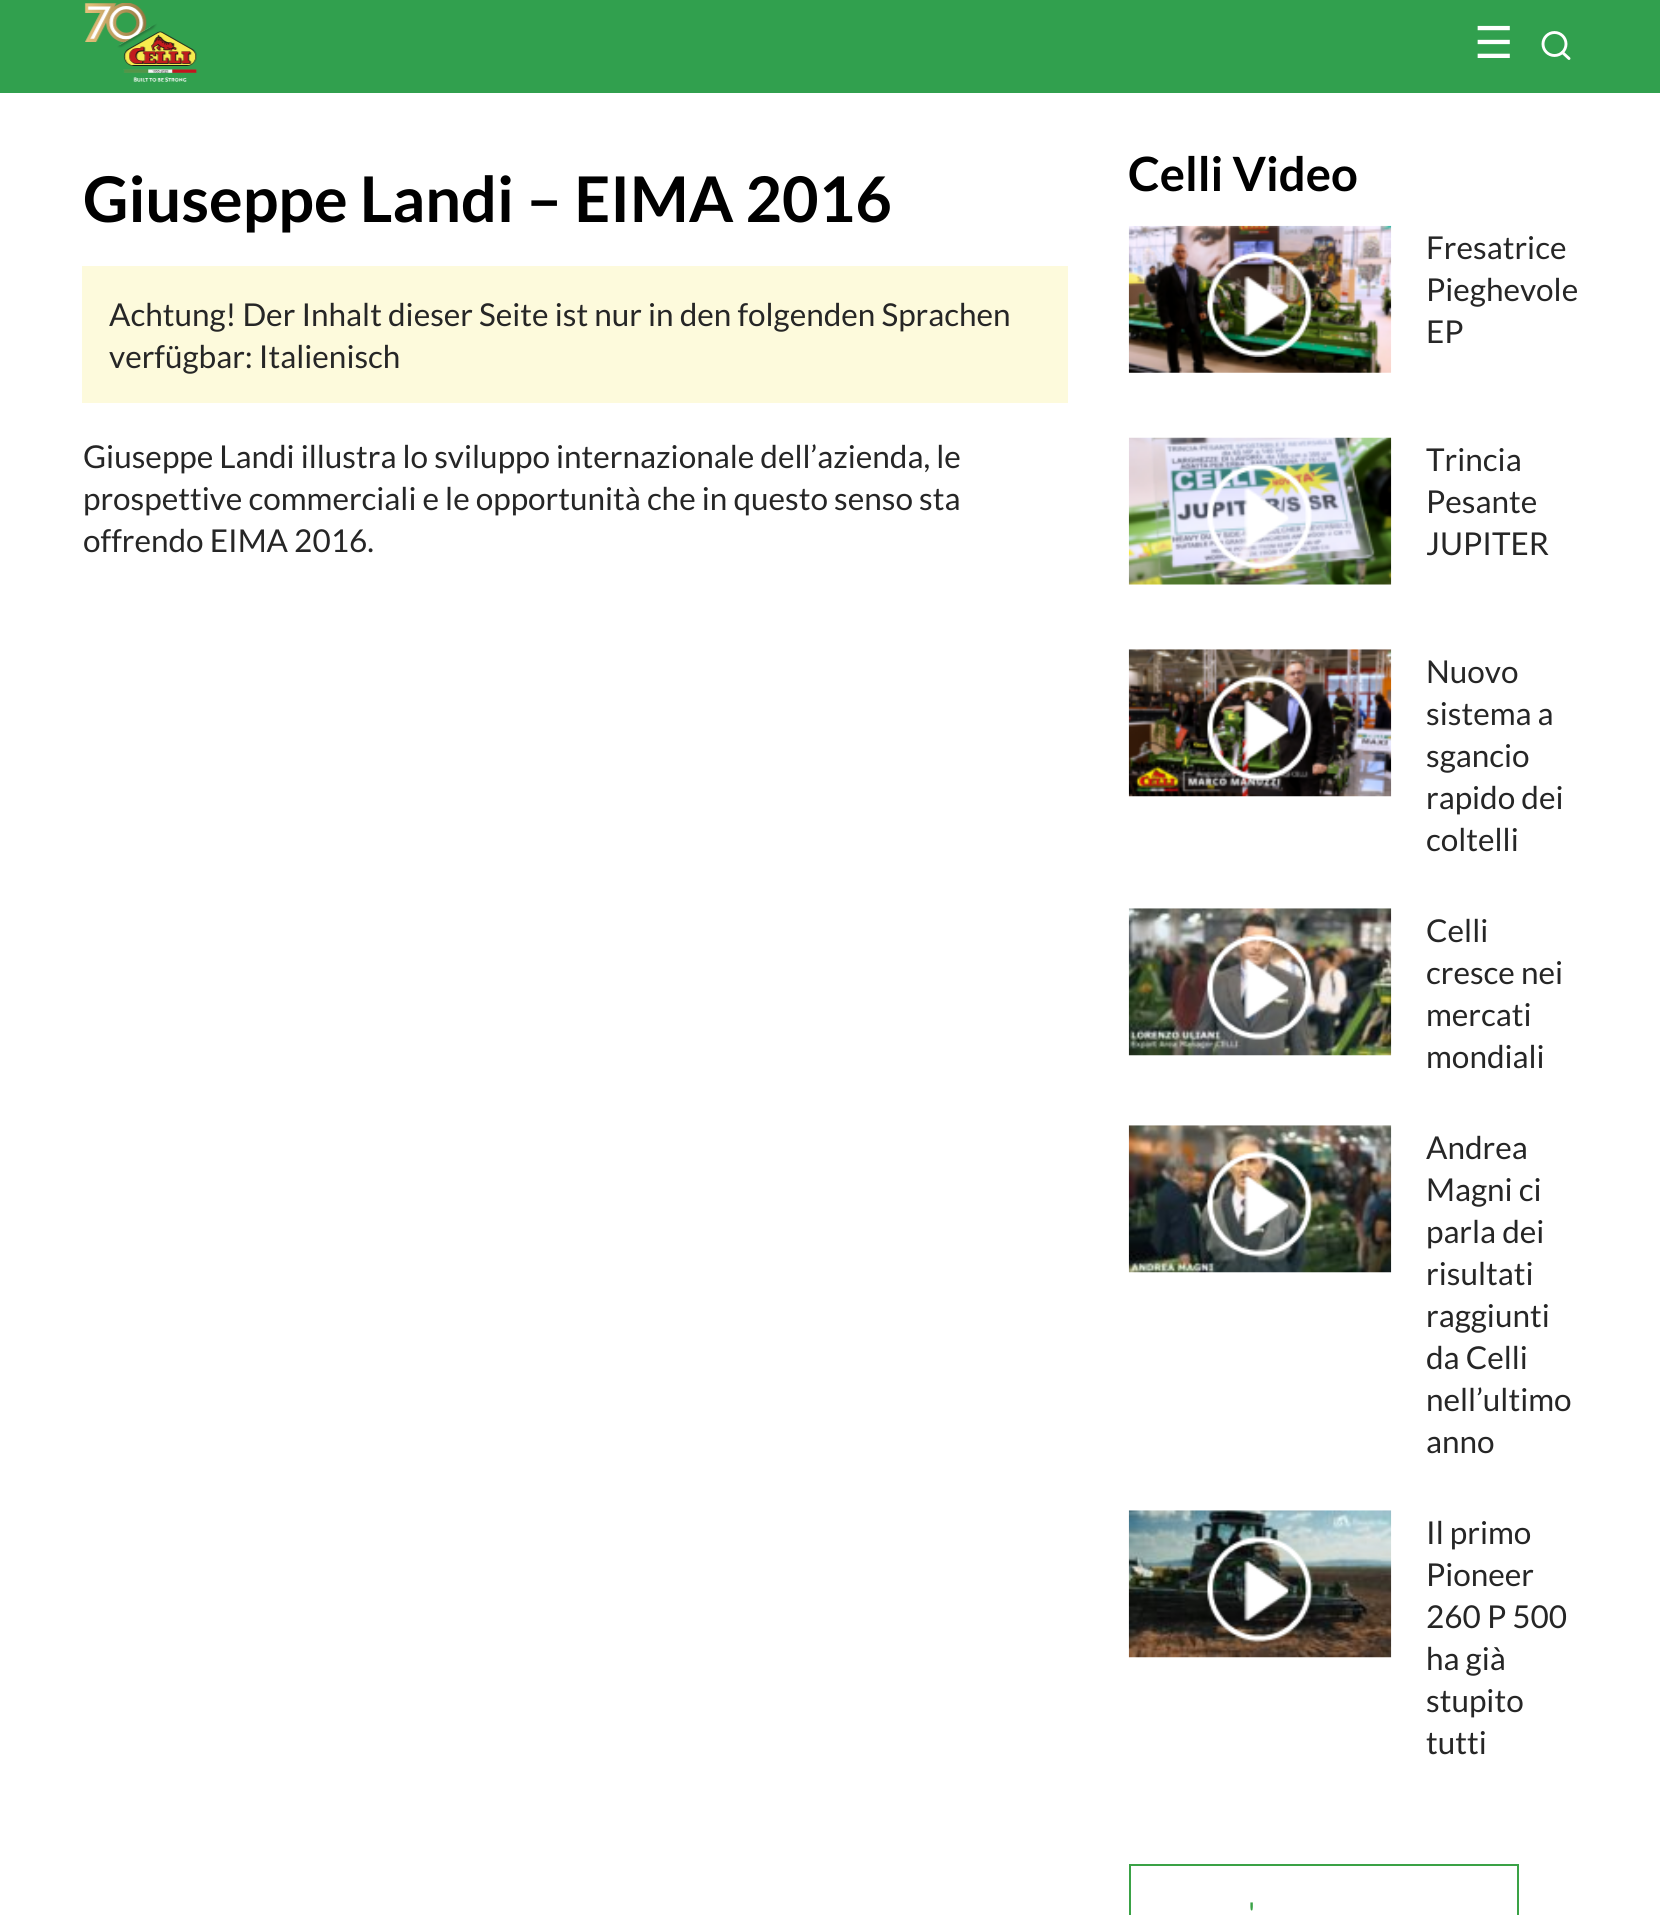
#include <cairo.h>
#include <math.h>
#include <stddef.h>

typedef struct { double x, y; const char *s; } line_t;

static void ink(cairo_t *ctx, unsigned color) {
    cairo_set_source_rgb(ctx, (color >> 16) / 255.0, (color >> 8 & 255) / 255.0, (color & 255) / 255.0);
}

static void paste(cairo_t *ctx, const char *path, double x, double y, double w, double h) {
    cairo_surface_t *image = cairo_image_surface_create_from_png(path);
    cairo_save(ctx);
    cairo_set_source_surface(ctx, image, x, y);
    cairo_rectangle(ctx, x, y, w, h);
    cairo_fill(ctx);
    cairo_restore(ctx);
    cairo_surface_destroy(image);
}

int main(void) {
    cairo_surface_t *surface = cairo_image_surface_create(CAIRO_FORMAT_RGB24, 1660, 1915);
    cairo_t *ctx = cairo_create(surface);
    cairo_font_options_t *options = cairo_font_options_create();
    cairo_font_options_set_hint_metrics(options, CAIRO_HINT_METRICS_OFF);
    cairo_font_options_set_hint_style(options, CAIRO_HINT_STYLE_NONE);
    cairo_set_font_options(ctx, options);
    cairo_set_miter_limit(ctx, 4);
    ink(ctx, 0xFFFFFF);
    cairo_paint(ctx);
    ink(ctx, 0x31A04E);
    cairo_rectangle(ctx, 0, 0, 1660, 93);
    cairo_fill(ctx);
    paste(ctx, "media/1.png", 84, 3, 114, 79);
    cairo_select_font_face(ctx, "DejaVu Sans", CAIRO_FONT_SLANT_NORMAL, CAIRO_FONT_WEIGHT_NORMAL);
    cairo_set_font_size(ctx, 44);
    ink(ctx, 0xFFFFFF);
    cairo_move_to(ctx, 1474, 58);
    cairo_show_text(ctx, "☰");
    cairo_new_path(ctx);
    cairo_arc(ctx, 1554.5, 44, 11.5, 0, 2 * M_PI);
    cairo_set_line_width(ctx, 2.9);
    cairo_stroke(ctx);
    cairo_new_path(ctx);
    cairo_move_to(ctx, 1569, 58.5);
    cairo_line_to(ctx, 1562.5, 52.5);
    cairo_set_line_cap(ctx, CAIRO_LINE_CAP_ROUND);
    cairo_set_line_join(ctx, CAIRO_LINE_JOIN_ROUND);
    cairo_stroke(ctx);
    cairo_select_font_face(ctx, "Lato", CAIRO_FONT_SLANT_NORMAL, CAIRO_FONT_WEIGHT_BOLD);
    cairo_set_font_size(ctx, 63);
    ink(ctx, 0x000000);
    cairo_move_to(ctx, 83, 222);
    cairo_show_text(ctx, "Giuseppe Landi – EIMA 2016");
    ink(ctx, 0xFDFADC);
    cairo_rectangle(ctx, 82, 266, 986, 137);
    cairo_fill(ctx);
    cairo_select_font_face(ctx, "Lato", CAIRO_FONT_SLANT_NORMAL, CAIRO_FONT_WEIGHT_NORMAL);
    cairo_set_font_size(ctx, 31.5);
    ink(ctx, 0x262626);
    {
        static const line_t items[] = {
            {109, 326, "Achtung! Der Inhalt dieser Seite ist nur in den folgenden Sprachen"},
            {109, 368, "verfügbar: Italienisch"},
            {83, 468, "Giuseppe Landi illustra lo sviluppo internazionale dell’azienda, le"},
            {83, 510, "prospettive commerciali e le opportunità che in questo senso sta"},
            {83, 552, "offrendo EIMA 2016."},
        };
        for (size_t i = 0; i < sizeof items / sizeof *items; i++) {
            cairo_move_to(ctx, items[i].x, items[i].y);
            cairo_show_text(ctx, items[i].s);
        }
    }
    cairo_select_font_face(ctx, "Lato", CAIRO_FONT_SLANT_NORMAL, CAIRO_FONT_WEIGHT_BOLD);
    cairo_set_font_size(ctx, 47.25);
    ink(ctx, 0x000000);
    cairo_move_to(ctx, 1128, 191);
    cairo_show_text(ctx, "Celli Video");
    paste(ctx, "media/2.png", 1128, 225, 264, 148);
    paste(ctx, "media/3.png", 1207, 252, 106, 105);
    cairo_select_font_face(ctx, "Lato", CAIRO_FONT_SLANT_NORMAL, CAIRO_FONT_WEIGHT_NORMAL);
    cairo_set_font_size(ctx, 31.5);
    ink(ctx, 0x262626);
    {
        static const line_t items[] = {
            {1426, 259, "Fresatrice"},
            {1426, 301, "Pieghevole"},
            {1426, 343, "EP"},
        };
        for (size_t i = 0; i < sizeof items / sizeof *items; i++) {
            cairo_move_to(ctx, items[i].x, items[i].y);
            cairo_show_text(ctx, items[i].s);
        }
    }
    paste(ctx, "media/4.png", 1128, 437, 264, 148);
    paste(ctx, "media/5.png", 1207, 463, 105, 106);
    {
        static const line_t items[] = {
            {1426, 471, "Trincia"},
            {1426, 513, "Pesante"},
            {1426, 555, "JUPITER"},
        };
        for (size_t i = 0; i < sizeof items / sizeof *items; i++) {
            cairo_move_to(ctx, items[i].x, items[i].y);
            cairo_show_text(ctx, items[i].s);
        }
    }
    paste(ctx, "media/6.png", 1128, 649, 264, 148);
    paste(ctx, "media/7.png", 1207, 675, 106, 106);
    {
        static const line_t items[] = {
            {1426, 683, "Nuovo"},
            {1426, 725, "sistema a"},
            {1426, 767, "sgancio"},
            {1426, 809, "rapido dei"},
            {1426, 851, "coltelli"},
        };
        for (size_t i = 0; i < sizeof items / sizeof *items; i++) {
            cairo_move_to(ctx, items[i].x, items[i].y);
            cairo_show_text(ctx, items[i].s);
        }
    }
    paste(ctx, "media/8.png", 1128, 908, 264, 148);
    paste(ctx, "media/9.png", 1207, 934, 106, 106);
    {
        static const line_t items[] = {
            {1426, 942, "Celli"},
            {1426, 984, "cresce nei"},
            {1426, 1026, "mercati"},
            {1426, 1068, "mondiali"},
        };
        for (size_t i = 0; i < sizeof items / sizeof *items; i++) {
            cairo_move_to(ctx, items[i].x, items[i].y);
            cairo_show_text(ctx, items[i].s);
        }
    }
    paste(ctx, "media/10.png", 1128, 1125, 264, 148);
    paste(ctx, "media/11.png", 1207, 1151, 106, 106);
    {
        static const line_t items[] = {
            {1426, 1159, "Andrea"},
            {1426, 1201, "Magni ci"},
            {1426, 1243, "parla dei"},
            {1426, 1285, "risultati"},
            {1426, 1327, "raggiunti"},
            {1426, 1369, "da Celli"},
            {1426, 1411, "nell’ultimo"},
            {1426, 1453, "anno"},
        };
        for (size_t i = 0; i < sizeof items / sizeof *items; i++) {
            cairo_move_to(ctx, items[i].x, items[i].y);
            cairo_show_text(ctx, items[i].s);
        }
    }
    paste(ctx, "media/12.png", 1128, 1510, 264, 148);
    paste(ctx, "media/13.png", 1207, 1536, 106, 106);
    {
        static const line_t items[] = {
            {1426, 1544, "Il primo"},
            {1426, 1586, "Pioneer"},
            {1426, 1628, "260 P 500"},
            {1426, 1670, "ha già"},
            {1426, 1712, "stupito"},
            {1426, 1754, "tutti"},
        };
        for (size_t i = 0; i < sizeof items / sizeof *items; i++) {
            cairo_move_to(ctx, items[i].x, items[i].y);
            cairo_show_text(ctx, items[i].s);
        }
    }
    cairo_rectangle(ctx, 1130, 1865, 388, 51);
    ink(ctx, 0x3AA246);
    cairo_set_line_width(ctx, 2);
    cairo_set_line_cap(ctx, CAIRO_LINE_CAP_BUTT);
    cairo_set_line_join(ctx, CAIRO_LINE_JOIN_MITER);
    cairo_stroke(ctx);
    cairo_move_to(ctx, 1248, 1925);
    cairo_show_text(ctx, "'");
    cairo_surface_write_to_png(surface, "image.png");
    cairo_font_options_destroy(options);
    cairo_destroy(ctx);
    cairo_surface_destroy(surface);
    return 0;
}
